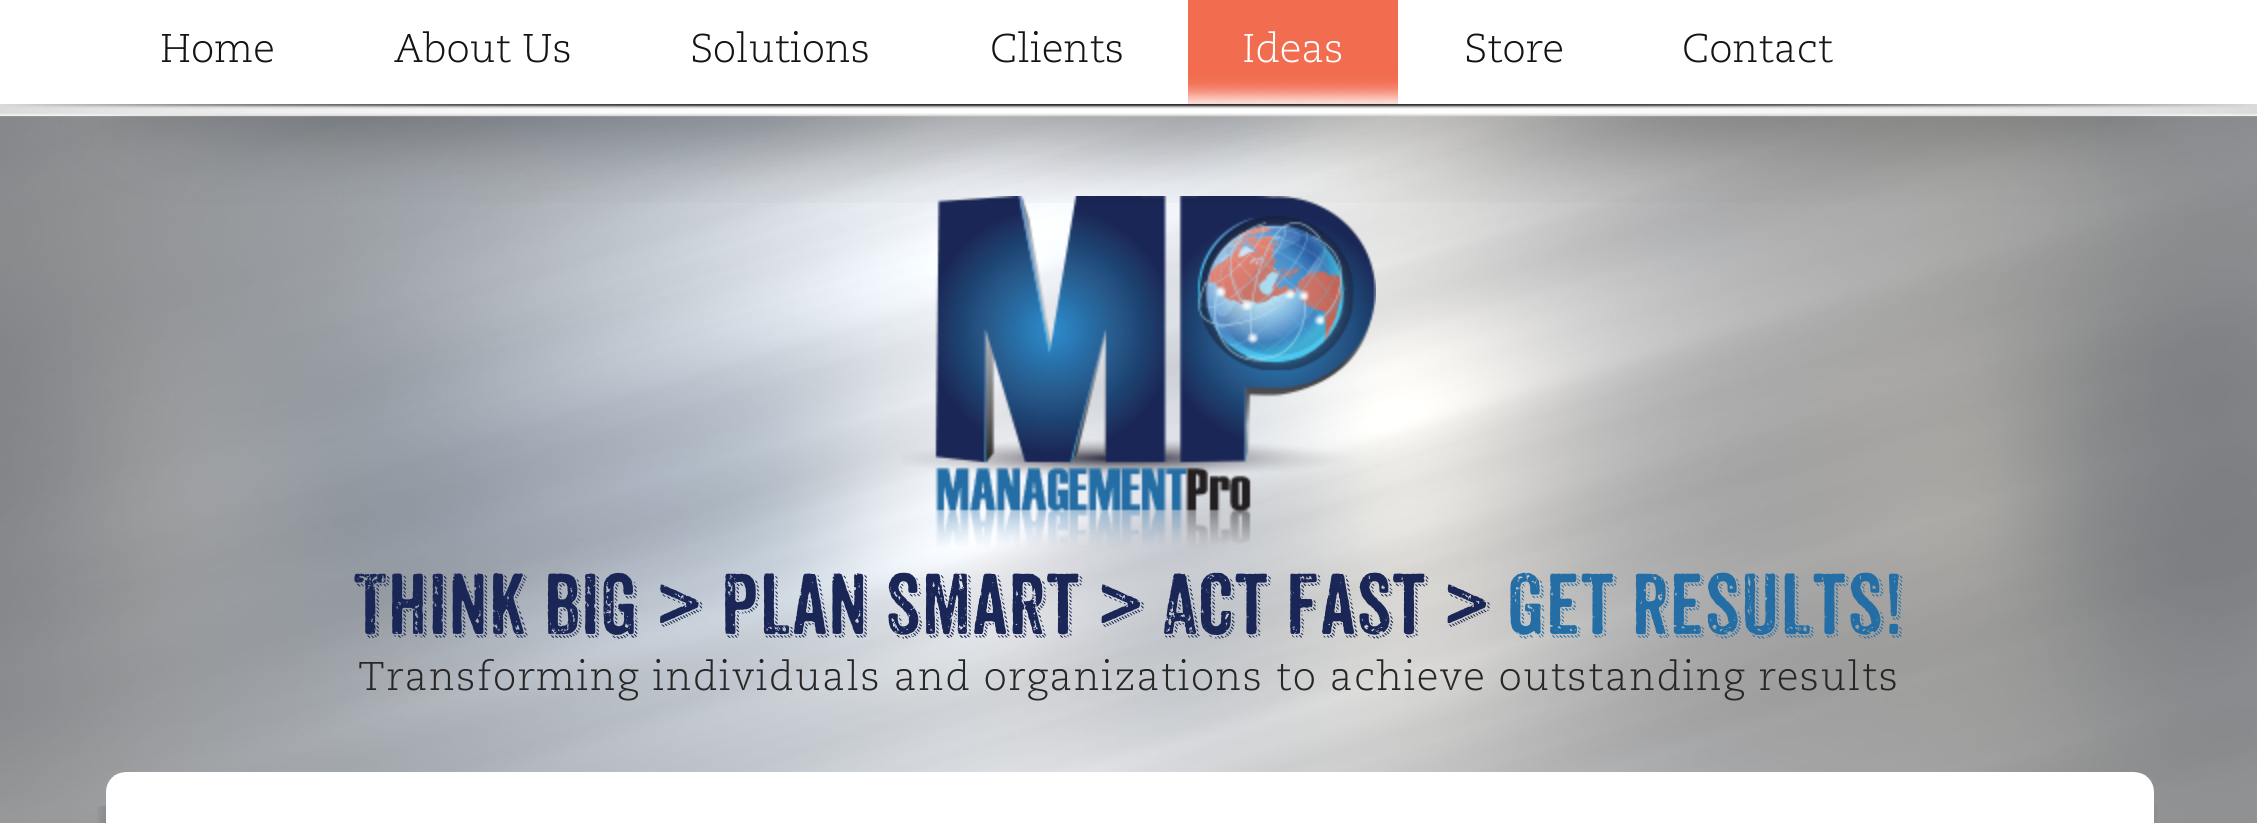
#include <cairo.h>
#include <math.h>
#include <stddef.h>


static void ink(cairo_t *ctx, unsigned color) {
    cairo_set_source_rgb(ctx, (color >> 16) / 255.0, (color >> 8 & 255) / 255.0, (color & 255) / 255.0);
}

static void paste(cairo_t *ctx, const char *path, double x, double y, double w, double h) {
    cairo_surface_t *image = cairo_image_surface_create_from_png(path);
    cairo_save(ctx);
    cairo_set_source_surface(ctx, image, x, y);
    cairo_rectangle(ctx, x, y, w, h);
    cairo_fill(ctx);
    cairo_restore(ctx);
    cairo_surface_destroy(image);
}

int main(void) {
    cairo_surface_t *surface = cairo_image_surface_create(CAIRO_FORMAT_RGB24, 2257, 823);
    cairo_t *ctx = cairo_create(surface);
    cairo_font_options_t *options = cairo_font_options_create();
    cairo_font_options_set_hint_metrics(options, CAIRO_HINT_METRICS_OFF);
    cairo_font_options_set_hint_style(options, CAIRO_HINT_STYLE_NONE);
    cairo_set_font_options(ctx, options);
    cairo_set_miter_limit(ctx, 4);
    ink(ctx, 0xFFFFFF);
    cairo_paint(ctx);
    paste(ctx, "media/1.png", 162, 34, 111, 29);
    paste(ctx, "media/2.png", 394, 31, 176, 32);
    paste(ctx, "media/3.png", 692, 30, 176, 33);
    paste(ctx, "media/4.png", 992, 30, 130, 33);
    paste(ctx, "media/5.png", 1188, 0, 210, 104);
    paste(ctx, "media/6.png", 1244, 31, 97, 32);
    paste(ctx, "media/7.png", 1466, 33, 97, 30);
    paste(ctx, "media/8.png", 1684, 33, 149, 30);
    paste(ctx, "media/10.png", 0, 116, 2257, 707);
    paste(ctx, "media/11.png", 901, 196, 475, 352);
    paste(ctx, "media/9.png", 0, 104, 2257, 99);
    cairo_select_font_face(ctx, "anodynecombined", CAIRO_FONT_SLANT_NORMAL, CAIRO_FONT_WEIGHT_NORMAL);
    cairo_set_font_size(ctx, 83.5);
    ink(ctx, 0x1A2655);
    cairo_move_to(ctx, 353, 634);
    cairo_show_text(ctx, "Think Big > Plan Smart > Act Fast >");
    ink(ctx, 0x246EA5);
    cairo_move_to(ctx, 1507, 634);
    cairo_show_text(ctx, "Get Results!");
    paste(ctx, "media/12.png", 359, 658, 1537, 43);
    paste(ctx, "media/13.png", 106, 772, 2048, 51);
    paste(ctx, "media/14.png", 97, 806, 9, 17);
    cairo_set_source_rgba(ctx, 0, 0, 0, 0.03);
    cairo_rectangle(ctx, 2154, 806, 3, 17);
    cairo_fill(ctx);
    cairo_surface_write_to_png(surface, "image.png");
    cairo_font_options_destroy(options);
    cairo_destroy(ctx);
    cairo_surface_destroy(surface);
    return 0;
}
